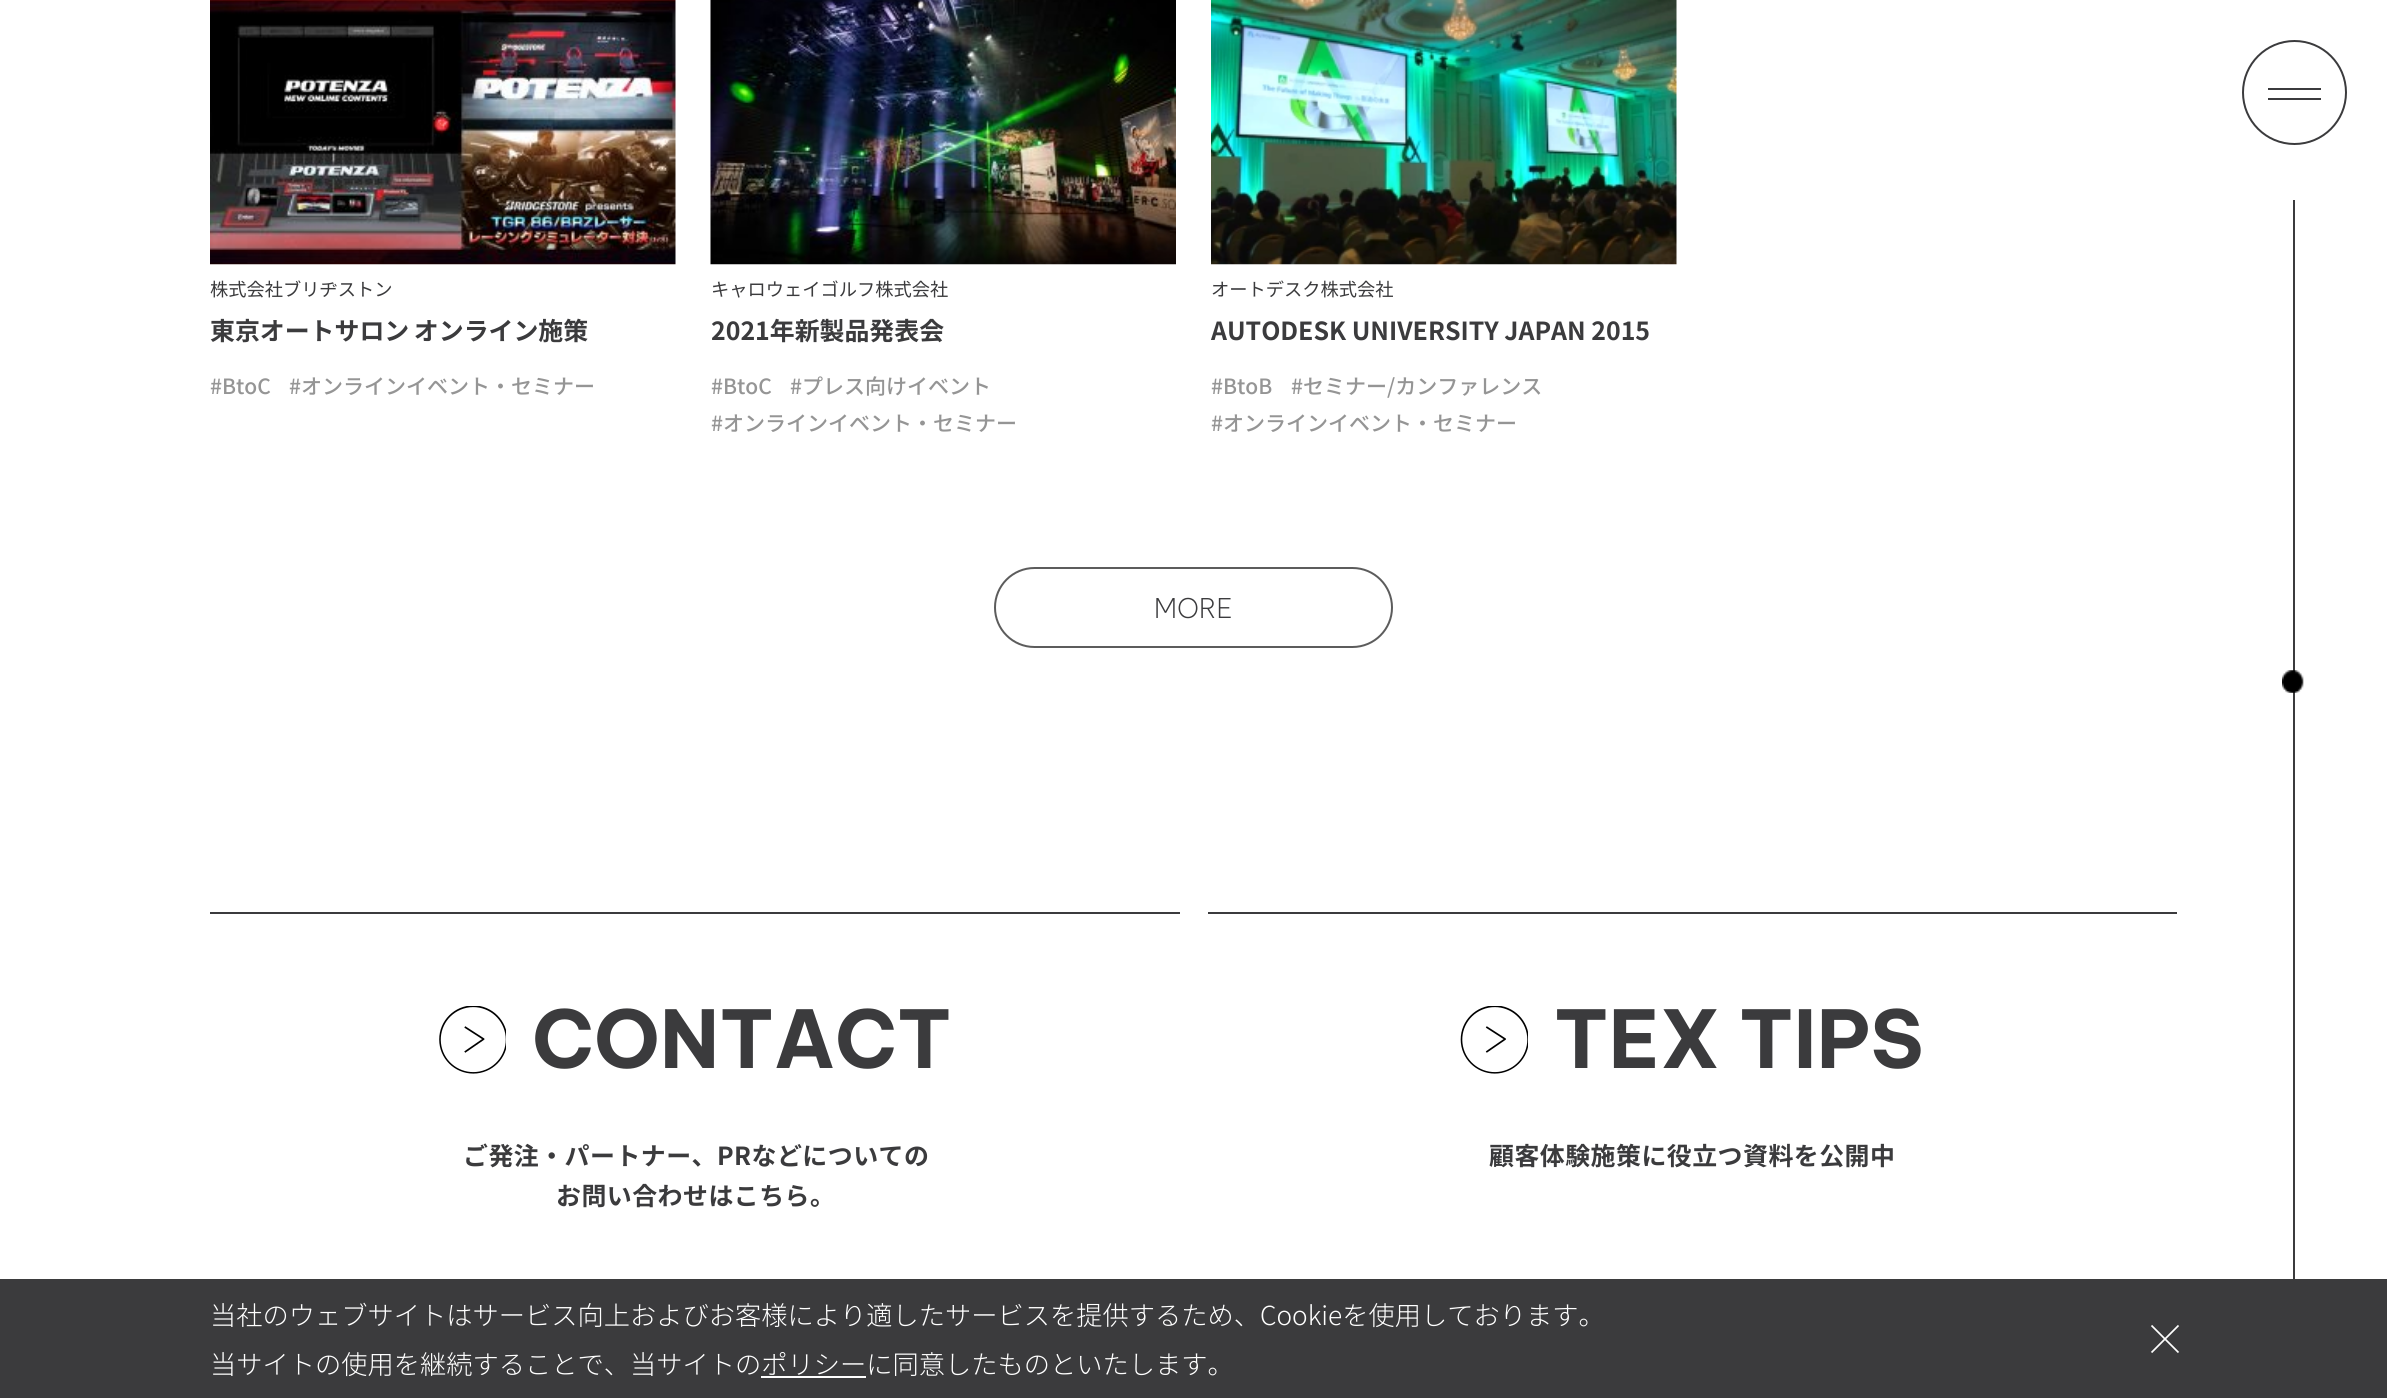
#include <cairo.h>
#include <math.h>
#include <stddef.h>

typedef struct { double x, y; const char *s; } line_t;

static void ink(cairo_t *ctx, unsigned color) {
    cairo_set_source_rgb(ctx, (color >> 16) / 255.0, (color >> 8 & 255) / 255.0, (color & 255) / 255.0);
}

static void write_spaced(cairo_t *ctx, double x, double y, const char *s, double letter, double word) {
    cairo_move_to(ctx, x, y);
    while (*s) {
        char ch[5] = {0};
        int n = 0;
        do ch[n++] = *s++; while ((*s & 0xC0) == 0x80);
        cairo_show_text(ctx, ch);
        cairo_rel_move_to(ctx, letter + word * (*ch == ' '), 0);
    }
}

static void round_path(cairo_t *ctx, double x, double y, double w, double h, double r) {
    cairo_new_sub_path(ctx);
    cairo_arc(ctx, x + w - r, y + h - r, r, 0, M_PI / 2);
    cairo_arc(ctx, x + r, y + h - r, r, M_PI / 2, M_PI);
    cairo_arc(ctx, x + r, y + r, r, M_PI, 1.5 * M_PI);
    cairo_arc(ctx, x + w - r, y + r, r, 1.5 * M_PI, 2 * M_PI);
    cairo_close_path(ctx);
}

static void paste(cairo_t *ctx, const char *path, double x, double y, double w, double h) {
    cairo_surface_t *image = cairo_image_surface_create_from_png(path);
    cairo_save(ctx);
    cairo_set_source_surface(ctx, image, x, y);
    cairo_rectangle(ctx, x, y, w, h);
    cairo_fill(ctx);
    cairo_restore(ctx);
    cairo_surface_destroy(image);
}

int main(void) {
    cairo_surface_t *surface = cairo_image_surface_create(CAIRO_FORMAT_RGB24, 2387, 1398);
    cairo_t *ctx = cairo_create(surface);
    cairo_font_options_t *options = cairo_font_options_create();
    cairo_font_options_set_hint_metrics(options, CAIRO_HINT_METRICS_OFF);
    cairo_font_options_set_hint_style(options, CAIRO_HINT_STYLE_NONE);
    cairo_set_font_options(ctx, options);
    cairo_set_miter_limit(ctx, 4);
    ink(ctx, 0xFFFFFF);
    cairo_paint(ctx);
    cairo_arc(ctx, 2294.5, 92.5, 51.5, 0, 2 * M_PI);
    ink(ctx, 0x3B3B3D);
    cairo_stroke(ctx);
    cairo_rectangle(ctx, 2268, 88, 53, 2);
    cairo_fill(ctx);
    cairo_rectangle(ctx, 2268, 98, 53, 2);
    cairo_fill(ctx);
    paste(ctx, "media/1.png", 210, 0, 466, 265);
    cairo_select_font_face(ctx, "Noto Sans JP", CAIRO_FONT_SLANT_NORMAL, CAIRO_FONT_WEIGHT_NORMAL);
    cairo_set_font_size(ctx, 18.25);
    cairo_move_to(ctx, 210, 296);
    cairo_show_text(ctx, "株式会社ブリヂストン");
    cairo_select_font_face(ctx, "Noto Sans JP", CAIRO_FONT_SLANT_NORMAL, CAIRO_FONT_WEIGHT_BOLD);
    cairo_set_font_size(ctx, 24.9);
    write_spaced(ctx, 210, 340, "東京オートサロン オンライン施策", 0, -1);
    cairo_select_font_face(ctx, "Noto Sans JP Medium", CAIRO_FONT_SLANT_NORMAL, CAIRO_FONT_WEIGHT_NORMAL);
    cairo_set_font_size(ctx, 21);
    ink(ctx, 0x959595);
    cairo_move_to(ctx, 210, 394);
    cairo_show_text(ctx, "#BtoC");
    cairo_move_to(ctx, 289, 394);
    cairo_show_text(ctx, "#オンラインイベント・セミナー");
    paste(ctx, "media/2.png", 710, 0, 466, 265);
    cairo_select_font_face(ctx, "Noto Sans JP", CAIRO_FONT_SLANT_NORMAL, CAIRO_FONT_WEIGHT_NORMAL);
    cairo_set_font_size(ctx, 18.25);
    ink(ctx, 0x3B3B3D);
    cairo_move_to(ctx, 711, 296);
    cairo_show_text(ctx, "キャロウェイゴルフ株式会社");
    cairo_select_font_face(ctx, "Noto Sans JP", CAIRO_FONT_SLANT_NORMAL, CAIRO_FONT_WEIGHT_BOLD);
    cairo_set_font_size(ctx, 24.9);
    cairo_move_to(ctx, 711, 340);
    cairo_show_text(ctx, "2021年新製品発表会");
    cairo_select_font_face(ctx, "Noto Sans JP Medium", CAIRO_FONT_SLANT_NORMAL, CAIRO_FONT_WEIGHT_NORMAL);
    cairo_set_font_size(ctx, 21);
    ink(ctx, 0x959595);
    {
        static const line_t items[] = {
            {711, 394, "#BtoC"},
            {790, 394, "#プレス向けイベント"},
            {711, 431, "#オンラインイベント・セミナー"},
        };
        for (size_t i = 0; i < sizeof items / sizeof *items; i++) {
            cairo_move_to(ctx, items[i].x, items[i].y);
            cairo_show_text(ctx, items[i].s);
        }
    }
    paste(ctx, "media/3.png", 1211, 0, 466, 265);
    cairo_select_font_face(ctx, "Noto Sans JP", CAIRO_FONT_SLANT_NORMAL, CAIRO_FONT_WEIGHT_NORMAL);
    cairo_set_font_size(ctx, 18.25);
    ink(ctx, 0x3B3B3D);
    cairo_move_to(ctx, 1211, 296);
    cairo_show_text(ctx, "オートデスク株式会社");
    cairo_select_font_face(ctx, "Noto Sans JP", CAIRO_FONT_SLANT_NORMAL, CAIRO_FONT_WEIGHT_BOLD);
    cairo_set_font_size(ctx, 24.9);
    cairo_move_to(ctx, 1211, 340);
    cairo_show_text(ctx, "AUTODESK UNIVERSITY JAPAN 2015");
    cairo_select_font_face(ctx, "Noto Sans JP Medium", CAIRO_FONT_SLANT_NORMAL, CAIRO_FONT_WEIGHT_NORMAL);
    cairo_set_font_size(ctx, 21);
    ink(ctx, 0x959595);
    {
        static const line_t items[] = {
            {1211, 394, "#BtoB"},
            {1291, 394, "#セミナー/カンファレンス"},
            {1211, 431, "#オンラインイベント・セミナー"},
        };
        for (size_t i = 0; i < sizeof items / sizeof *items; i++) {
            cairo_move_to(ctx, items[i].x, items[i].y);
            cairo_show_text(ctx, items[i].s);
        }
    }
    round_path(ctx, 995, 568, 397, 79, 39.5);
    ink(ctx, 0x5C5C5C);
    cairo_stroke(ctx);
    cairo_select_font_face(ctx, "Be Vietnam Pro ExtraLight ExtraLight", CAIRO_FONT_SLANT_NORMAL, CAIRO_FONT_WEIGHT_NORMAL);
    cairo_set_font_size(ctx, 27);
    ink(ctx, 0x3B3B3D);
    cairo_move_to(ctx, 1154, 618);
    cairo_show_text(ctx, "MORE");
    cairo_rectangle(ctx, 2293, 200, 2, 1079);
    cairo_fill(ctx);
    paste(ctx, "media/4.png", 2282, 670, 22, 23);
    cairo_rectangle(ctx, 210, 912, 970, 2);
    cairo_fill(ctx);
    paste(ctx, "media/5.png", 439, 1006, 67, 68);
    cairo_select_font_face(ctx, "Be Vietnam Pro", CAIRO_FONT_SLANT_NORMAL, CAIRO_FONT_WEIGHT_BOLD);
    cairo_set_font_size(ctx, 79.5);
    cairo_move_to(ctx, 532, 1068);
    cairo_show_text(ctx, "CONTACT");
    cairo_select_font_face(ctx, "Noto Sans JP", CAIRO_FONT_SLANT_NORMAL, CAIRO_FONT_WEIGHT_BOLD);
    cairo_set_font_size(ctx, 24.9);
    write_spaced(ctx, 463, 1165, "ご発注・パートナー、PRなどについての", 0.5, 0);
    write_spaced(ctx, 556, 1205, "お問い合わせはこちら。", 0.5, 0);
    cairo_rectangle(ctx, 1208, 912, 969, 2);
    cairo_fill(ctx);
    paste(ctx, "media/6.png", 1460, 1006, 68, 68);
    cairo_select_font_face(ctx, "Be Vietnam Pro", CAIRO_FONT_SLANT_NORMAL, CAIRO_FONT_WEIGHT_BOLD);
    cairo_set_font_size(ctx, 79.5);
    cairo_move_to(ctx, 1554, 1068);
    cairo_show_text(ctx, "TEX TIPS");
    cairo_select_font_face(ctx, "Noto Sans JP", CAIRO_FONT_SLANT_NORMAL, CAIRO_FONT_WEIGHT_BOLD);
    cairo_set_font_size(ctx, 24.9);
    write_spaced(ctx, 1489, 1165, "顧客体験施策に役立つ資料を公開中", 0.5, 0);
    cairo_rectangle(ctx, 0, 1279, 2387, 119);
    cairo_fill(ctx);
    cairo_select_font_face(ctx, "Noto Sans JP Light", CAIRO_FONT_SLANT_NORMAL, CAIRO_FONT_WEIGHT_NORMAL);
    cairo_set_font_size(ctx, 26.25);
    ink(ctx, 0xFFFFFF);
    cairo_move_to(ctx, 210, 1325);
    cairo_show_text(ctx, "当社のウェブサイトはサービス向上およびお客様により適したサービスを提供するため、Cookieを使用しております。");
    cairo_move_to(ctx, 210, 1374);
    cairo_show_text(ctx, "当サイトの使用を継続することで、当サイトのポリシーに同意したものといたします。");
    cairo_rectangle(ctx, 761, 1376, 105, 2);
    cairo_fill(ctx);
    cairo_new_path(ctx);
    cairo_move_to(ctx, 2151.5, 1325.5);
    cairo_line_to(ctx, 2178.5, 1352.5);
    cairo_move_to(ctx, 2178.5, 1325.5);
    cairo_line_to(ctx, 2151.5, 1352.5);
    cairo_set_line_width(ctx, 1.7);
    cairo_stroke(ctx);
    cairo_surface_write_to_png(surface, "image.png");
    cairo_font_options_destroy(options);
    cairo_destroy(ctx);
    cairo_surface_destroy(surface);
    return 0;
}
